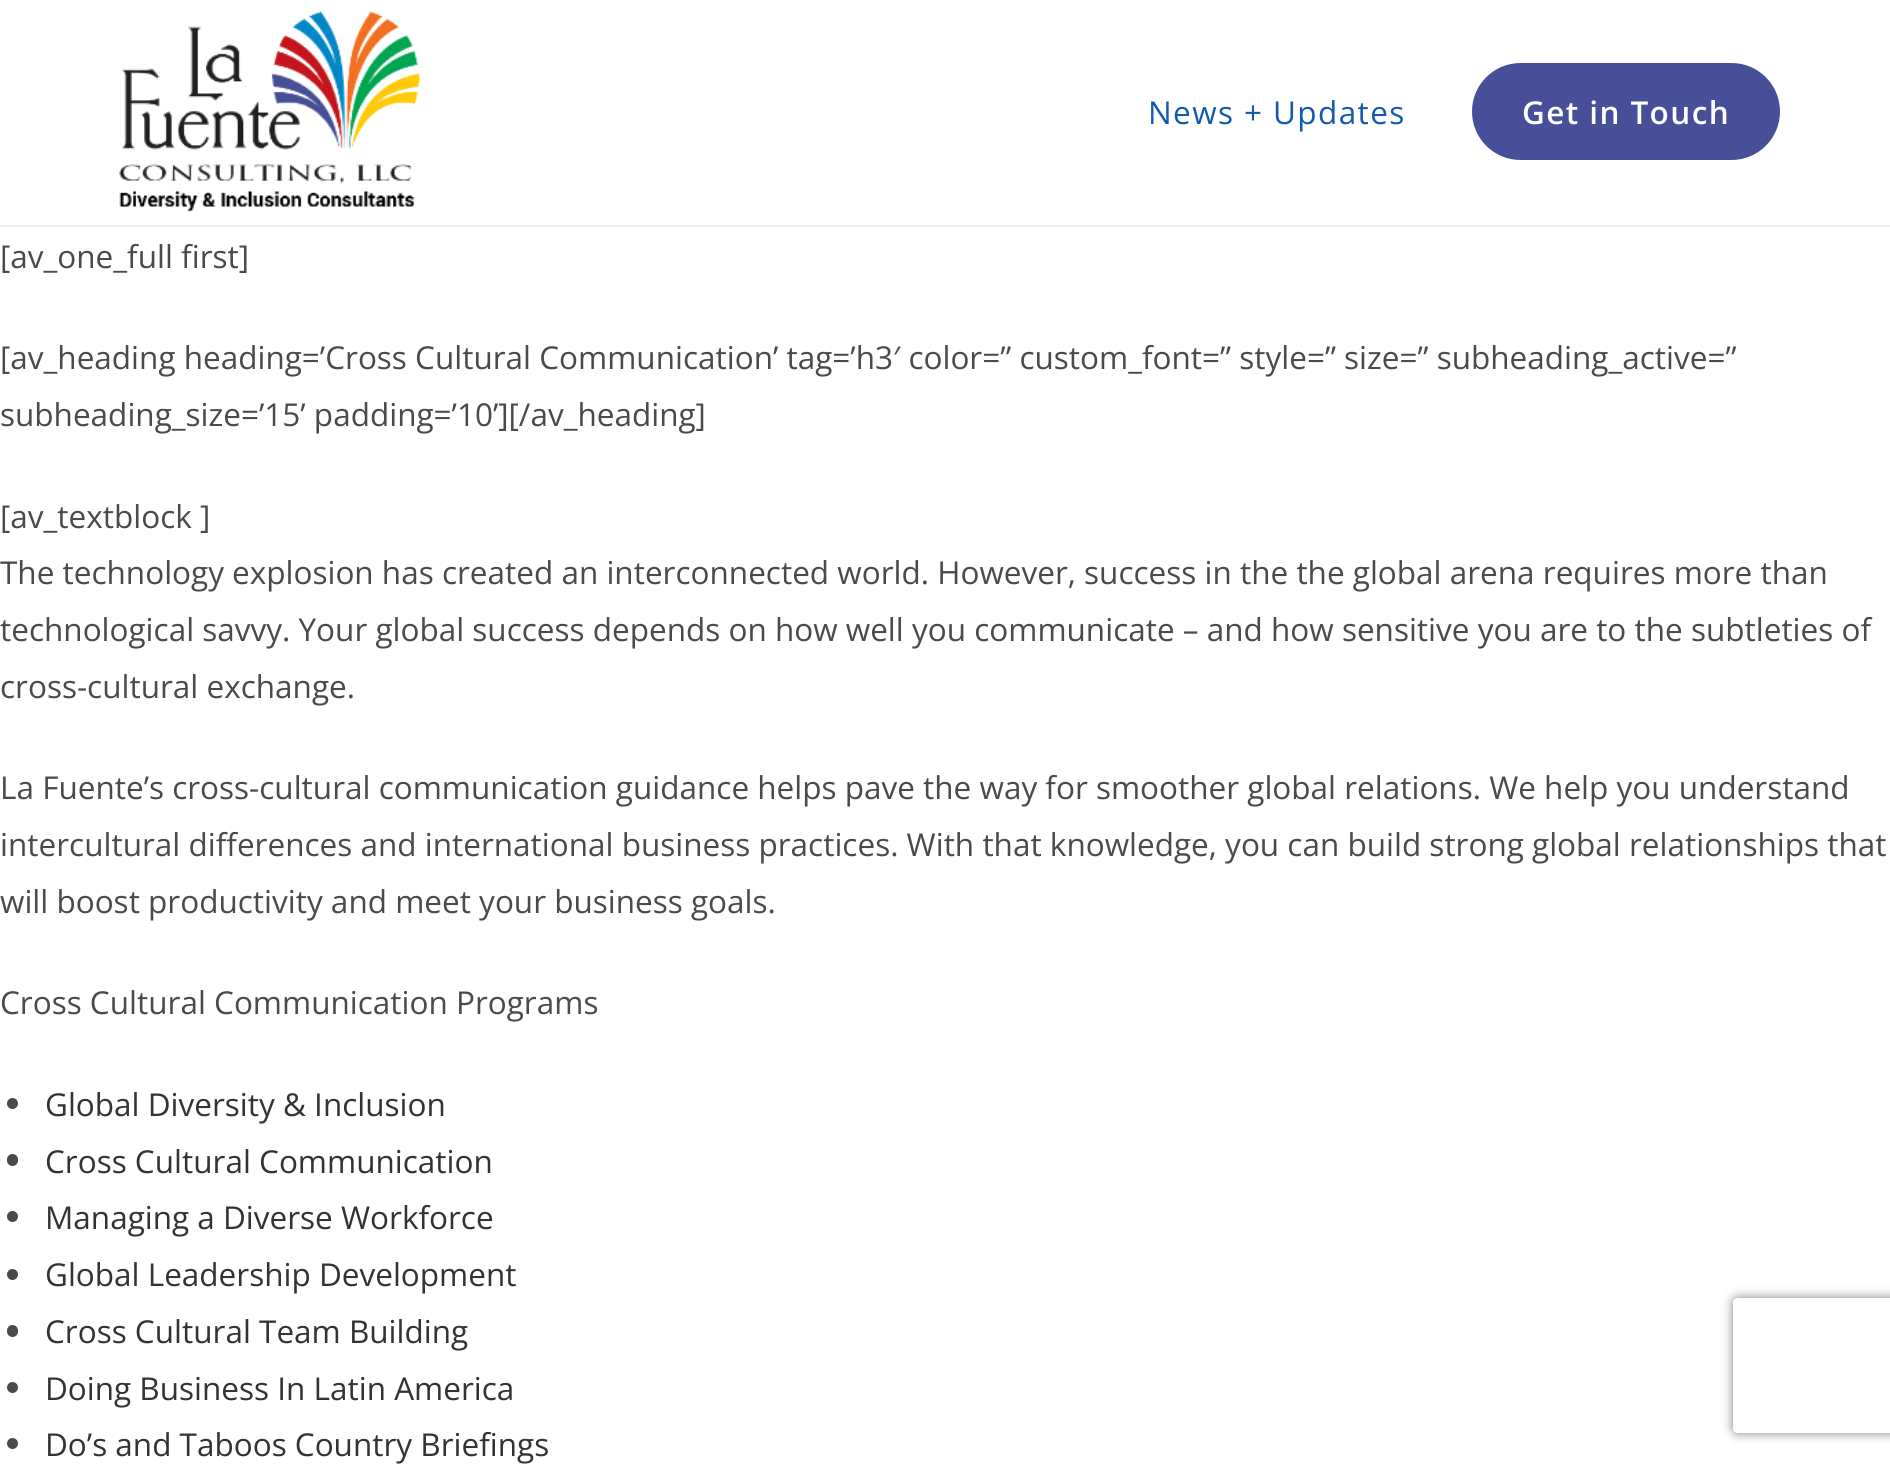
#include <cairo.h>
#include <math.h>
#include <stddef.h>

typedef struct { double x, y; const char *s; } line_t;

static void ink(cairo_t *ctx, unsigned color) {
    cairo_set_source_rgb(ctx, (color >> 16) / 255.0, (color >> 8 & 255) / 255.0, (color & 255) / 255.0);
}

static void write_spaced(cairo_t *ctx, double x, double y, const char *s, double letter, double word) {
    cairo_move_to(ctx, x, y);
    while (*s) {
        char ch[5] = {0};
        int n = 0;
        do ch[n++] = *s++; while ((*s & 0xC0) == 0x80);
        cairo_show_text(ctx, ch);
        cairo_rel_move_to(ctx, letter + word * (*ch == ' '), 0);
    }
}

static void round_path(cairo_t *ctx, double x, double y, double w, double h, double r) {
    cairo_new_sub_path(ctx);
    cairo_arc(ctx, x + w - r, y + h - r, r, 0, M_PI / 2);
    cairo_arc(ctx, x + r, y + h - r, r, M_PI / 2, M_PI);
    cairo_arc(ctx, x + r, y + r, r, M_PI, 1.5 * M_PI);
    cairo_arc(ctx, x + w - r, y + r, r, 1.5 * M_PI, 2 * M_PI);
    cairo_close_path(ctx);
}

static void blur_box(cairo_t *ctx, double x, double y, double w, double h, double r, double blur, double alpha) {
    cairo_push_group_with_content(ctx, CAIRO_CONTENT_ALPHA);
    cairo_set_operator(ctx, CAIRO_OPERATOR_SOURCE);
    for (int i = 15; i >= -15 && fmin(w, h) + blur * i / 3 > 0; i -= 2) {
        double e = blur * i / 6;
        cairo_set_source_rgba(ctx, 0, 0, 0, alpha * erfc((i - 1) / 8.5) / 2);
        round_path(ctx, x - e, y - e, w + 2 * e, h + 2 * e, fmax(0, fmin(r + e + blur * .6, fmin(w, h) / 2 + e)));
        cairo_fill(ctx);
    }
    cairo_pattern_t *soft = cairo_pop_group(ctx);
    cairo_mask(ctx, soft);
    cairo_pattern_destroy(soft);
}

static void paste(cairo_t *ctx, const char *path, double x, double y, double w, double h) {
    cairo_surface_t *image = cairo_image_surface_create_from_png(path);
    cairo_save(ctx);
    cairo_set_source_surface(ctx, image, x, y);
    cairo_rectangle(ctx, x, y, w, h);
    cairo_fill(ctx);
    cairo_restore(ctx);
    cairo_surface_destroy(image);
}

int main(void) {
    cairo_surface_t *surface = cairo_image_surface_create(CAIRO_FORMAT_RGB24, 1890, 1464);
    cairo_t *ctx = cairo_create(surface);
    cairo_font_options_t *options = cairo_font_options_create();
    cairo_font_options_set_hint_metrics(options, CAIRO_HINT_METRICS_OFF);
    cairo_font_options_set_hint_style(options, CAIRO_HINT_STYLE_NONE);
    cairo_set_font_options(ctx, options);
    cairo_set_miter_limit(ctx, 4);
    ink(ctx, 0xFFFFFF);
    cairo_paint(ctx);
    ink(ctx, 0xF1F1F1);
    cairo_rectangle(ctx, 0, 225, 1890, 2);
    cairo_fill(ctx);
    paste(ctx, "media/1.png", 119, 11, 301, 201);
    cairo_select_font_face(ctx, "Open Sans", CAIRO_FONT_SLANT_NORMAL, CAIRO_FONT_WEIGHT_NORMAL);
    cairo_set_font_size(ctx, 31.5);
    ink(ctx, 0x115AAF);
    write_spaced(ctx, 1148, 124, "News + Updates", 1.4, 0);
    ink(ctx, 0x474F98);
    round_path(ctx, 1472, 63, 308, 97, 48.5);
    cairo_fill(ctx);
    cairo_select_font_face(ctx, "Open Sans SemiBold", CAIRO_FONT_SLANT_NORMAL, CAIRO_FONT_WEIGHT_NORMAL);
    ink(ctx, 0xFFFFFF);
    write_spaced(ctx, 1522, 124, "Get in Touch", 1.4, 0);
    cairo_select_font_face(ctx, "Open Sans", CAIRO_FONT_SLANT_NORMAL, CAIRO_FONT_WEIGHT_NORMAL);
    ink(ctx, 0x4A4A4A);
    {
        static const line_t items[] = {
            {0, 268, "[av_one_full first]"},
            {0, 369, "[av_heading heading=’Cross Cultural Communication’ tag=’h3′ color=” custom_font=” style=” size=” subheading_active=”"},
            {0, 426, "subheading_size=’15’ padding=’10’][/av_heading]"},
            {0, 528, "[av_textblock ]"},
            {0, 584, "The technology explosion has created an interconnected world. However, success in the the global arena requires more than"},
            {0, 641, "technological savvy. Your global success depends on how well you communicate – and how sensitive you are to the subtleties of"},
            {0, 698, "cross-cultural exchange."},
            {0, 799, "La Fuente’s cross-cultural communication guidance helps pave the way for smoother global relations. We help you understand"},
            {0, 856, "intercultural differences and international business practices. With that knowledge, you can build strong global relationships that"},
            {0, 913, "will boost productivity and meet your business goals."},
            {0, 1014, "Cross Cultural Communication Programs"},
        };
        for (size_t i = 0; i < sizeof items / sizeof *items; i++) {
            cairo_move_to(ctx, items[i].x, items[i].y);
            cairo_show_text(ctx, items[i].s);
        }
    }
    cairo_new_path(ctx);
    cairo_arc(ctx, 12.5, 1103.5, 5.5, 0, 2 * M_PI);
    cairo_fill(ctx);
    ink(ctx, 0x333333);
    cairo_move_to(ctx, 45, 1116);
    cairo_show_text(ctx, "Global Diversity & Inclusion");
    ink(ctx, 0x4A4A4A);
    round_path(ctx, 7, 1154, 11, 12, 5.5);
    cairo_fill(ctx);
    ink(ctx, 0x333333);
    cairo_move_to(ctx, 45, 1173);
    cairo_show_text(ctx, "Cross Cultural Communication");
    ink(ctx, 0x4A4A4A);
    cairo_new_path(ctx);
    cairo_arc(ctx, 12.5, 1216.5, 5.5, 0, 2 * M_PI);
    cairo_fill(ctx);
    ink(ctx, 0x333333);
    cairo_move_to(ctx, 45, 1229);
    cairo_show_text(ctx, "Managing a Diverse Workforce");
    ink(ctx, 0x4A4A4A);
    cairo_new_path(ctx);
    cairo_arc(ctx, 12.5, 1274.5, 5.5, 0, 2 * M_PI);
    cairo_fill(ctx);
    ink(ctx, 0x333333);
    cairo_move_to(ctx, 45, 1286);
    cairo_show_text(ctx, "Global Leadership Development");
    ink(ctx, 0x4A4A4A);
    round_path(ctx, 7, 1325, 11, 12, 5.5);
    cairo_fill(ctx);
    ink(ctx, 0x333333);
    cairo_move_to(ctx, 45, 1343);
    cairo_show_text(ctx, "Cross Cultural Team Building");
    ink(ctx, 0x4A4A4A);
    cairo_new_path(ctx);
    cairo_arc(ctx, 12.5, 1387.5, 5.5, 0, 2 * M_PI);
    cairo_fill(ctx);
    ink(ctx, 0x333333);
    cairo_move_to(ctx, 45, 1400);
    cairo_show_text(ctx, "Doing Business In Latin America");
    ink(ctx, 0x4A4A4A);
    cairo_new_path(ctx);
    cairo_arc(ctx, 12.5, 1443.5, 5.5, 0, 2 * M_PI);
    cairo_fill(ctx);
    ink(ctx, 0x333333);
    cairo_move_to(ctx, 45, 1456);
    cairo_show_text(ctx, "Do’s and Taboos Country Briefings");
    cairo_save(ctx);
    cairo_set_fill_rule(ctx, CAIRO_FILL_RULE_EVEN_ODD);
    cairo_new_path(ctx);
    cairo_move_to(ctx, 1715, 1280);
    cairo_line_to(ctx, 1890, 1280);
    cairo_line_to(ctx, 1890, 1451);
    cairo_line_to(ctx, 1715, 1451);
    cairo_close_path(ctx);
    cairo_move_to(ctx, 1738, 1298);
    cairo_line_to(ctx, 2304, 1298);
    cairo_curve_to(ctx, 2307, 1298, 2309, 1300, 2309, 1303);
    cairo_line_to(ctx, 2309, 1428);
    cairo_curve_to(ctx, 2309, 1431, 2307, 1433, 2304, 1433);
    cairo_line_to(ctx, 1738, 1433);
    cairo_curve_to(ctx, 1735, 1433, 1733, 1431, 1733, 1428);
    cairo_line_to(ctx, 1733, 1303);
    cairo_curve_to(ctx, 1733, 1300, 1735, 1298, 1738, 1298);
    cairo_close_path(ctx);
    cairo_clip(ctx);
    ink(ctx, 0x808080);
    blur_box(ctx, 1733, 1298, 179, 135, 5, 5.5, 1);
    cairo_restore(ctx);
    cairo_surface_write_to_png(surface, "image.png");
    cairo_font_options_destroy(options);
    cairo_destroy(ctx);
    cairo_surface_destroy(surface);
    return 0;
}
